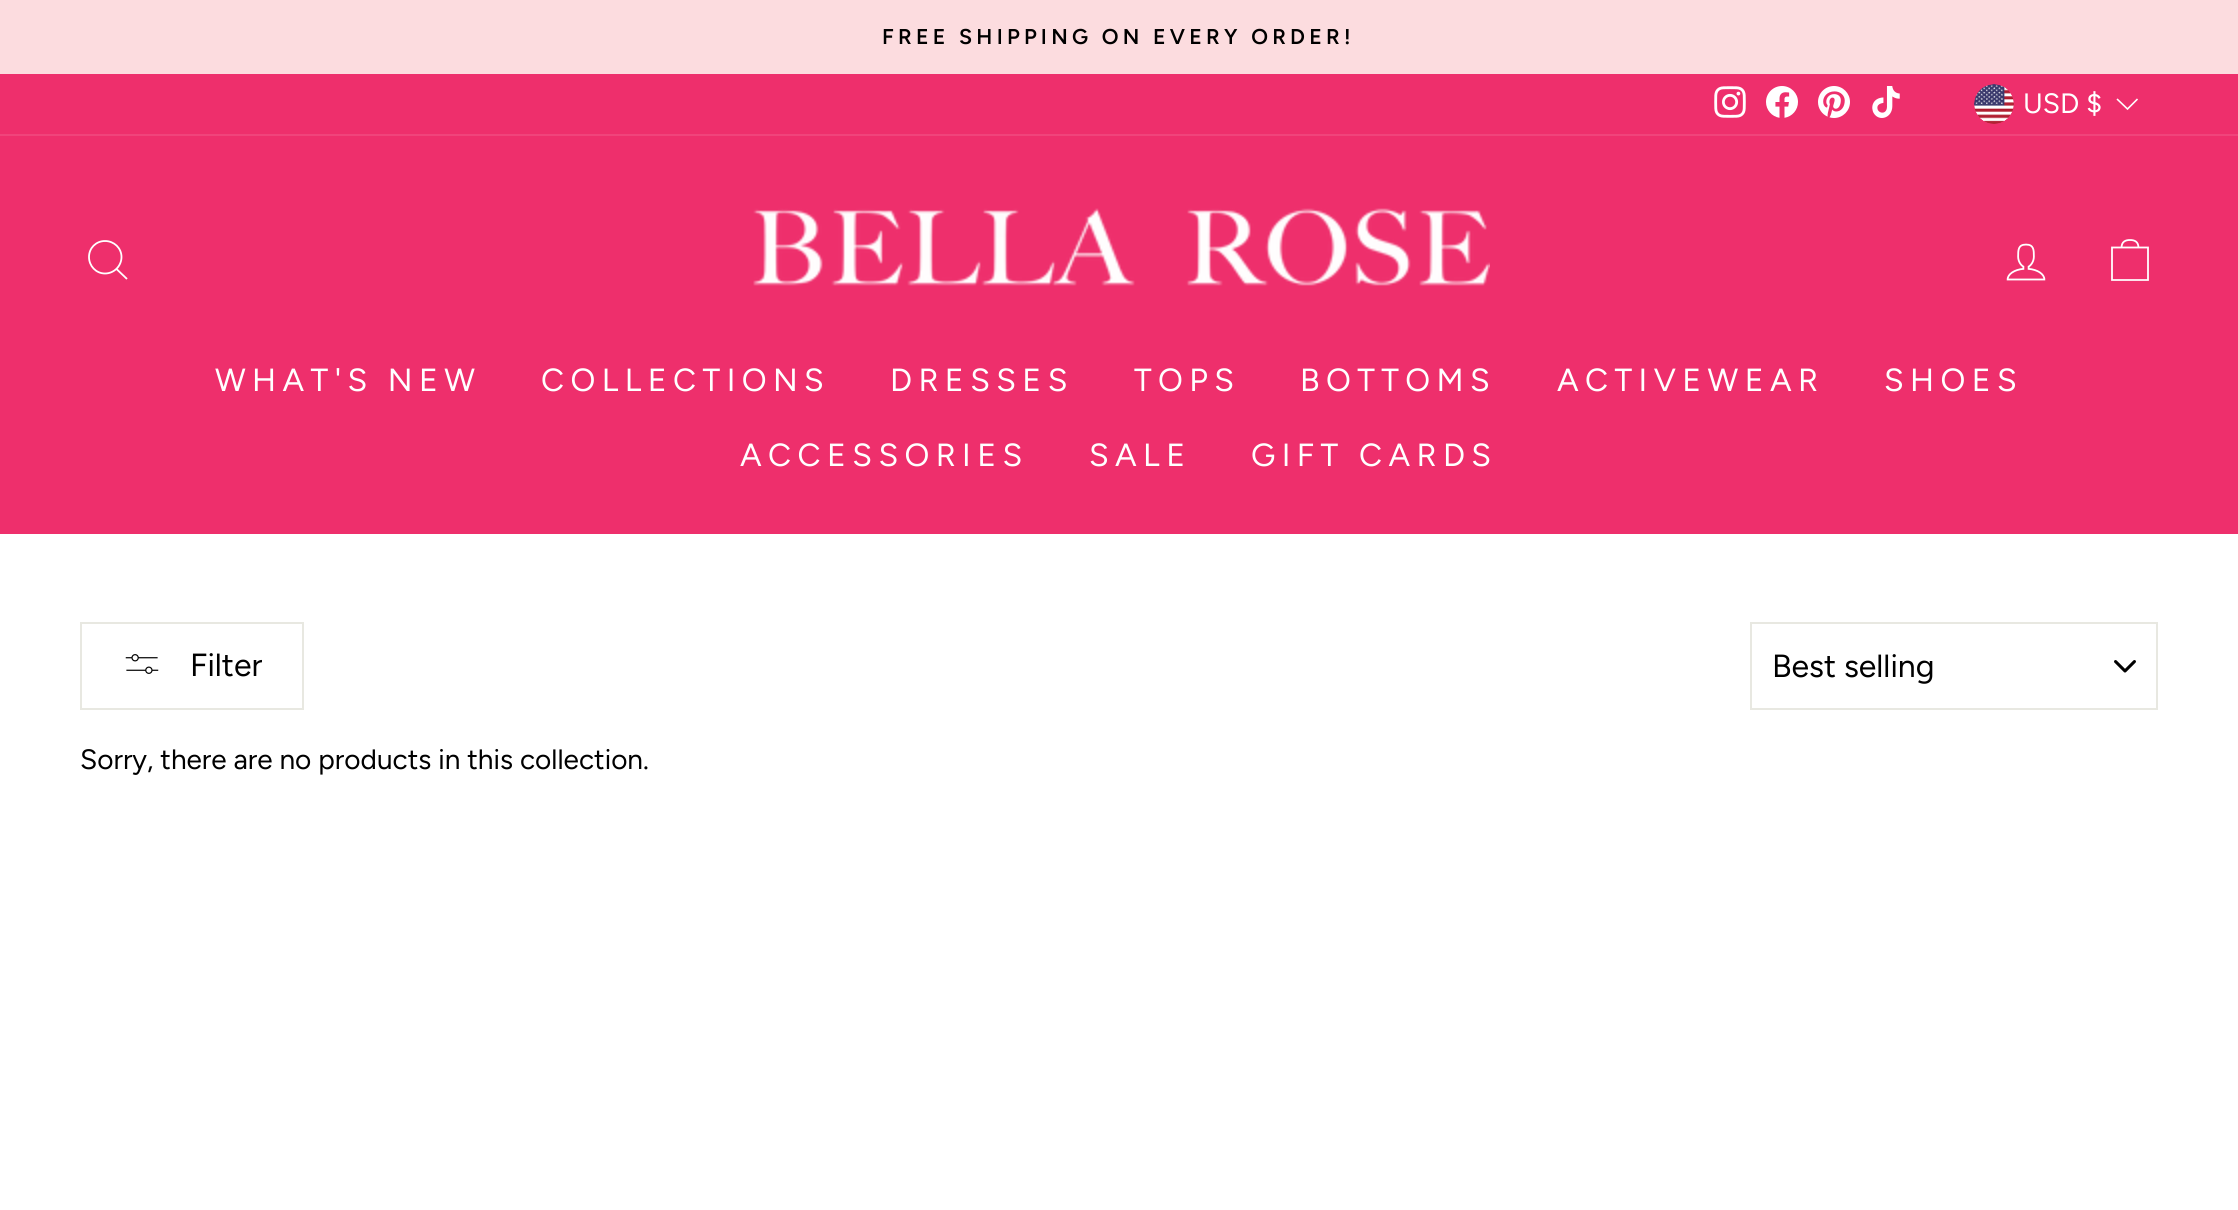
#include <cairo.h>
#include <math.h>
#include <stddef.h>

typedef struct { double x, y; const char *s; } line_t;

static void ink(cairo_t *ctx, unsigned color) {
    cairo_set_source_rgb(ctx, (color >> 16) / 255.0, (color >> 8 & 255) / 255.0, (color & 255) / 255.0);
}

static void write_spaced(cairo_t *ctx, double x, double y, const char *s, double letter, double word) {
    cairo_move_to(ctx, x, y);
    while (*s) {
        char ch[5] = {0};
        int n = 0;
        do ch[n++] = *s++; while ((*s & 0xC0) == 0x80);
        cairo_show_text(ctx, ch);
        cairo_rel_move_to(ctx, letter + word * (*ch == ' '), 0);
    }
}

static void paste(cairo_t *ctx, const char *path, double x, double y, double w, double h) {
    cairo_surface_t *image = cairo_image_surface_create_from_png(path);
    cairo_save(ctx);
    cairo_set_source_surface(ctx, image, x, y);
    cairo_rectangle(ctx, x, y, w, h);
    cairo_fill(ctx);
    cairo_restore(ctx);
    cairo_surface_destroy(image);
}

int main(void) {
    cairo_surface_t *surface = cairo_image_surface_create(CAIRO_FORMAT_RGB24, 2238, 1210);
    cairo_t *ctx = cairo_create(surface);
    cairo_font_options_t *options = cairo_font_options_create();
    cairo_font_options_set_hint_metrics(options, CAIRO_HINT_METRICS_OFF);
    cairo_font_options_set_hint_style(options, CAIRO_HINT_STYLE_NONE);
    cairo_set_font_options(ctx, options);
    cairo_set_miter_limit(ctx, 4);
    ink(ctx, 0xFFFFFF);
    cairo_paint(ctx);
    ink(ctx, 0xFCDCDF);
    cairo_rectangle(ctx, 0, 0, 2238, 74);
    cairo_fill(ctx);
    cairo_select_font_face(ctx, "Figtree SemiBold", CAIRO_FONT_SLANT_NORMAL, CAIRO_FONT_WEIGHT_NORMAL);
    cairo_set_font_size(ctx, 21.4);
    ink(ctx, 0x000000);
    write_spaced(ctx, 882, 44, "FREE SHIPPING ON EVERY ORDER!", 4.25, 0);
    ink(ctx, 0xEE2F6C);
    cairo_rectangle(ctx, 0, 74, 2238, 60);
    cairo_fill(ctx);
    paste(ctx, "media/1.png", 1714, 86, 32, 32);
    paste(ctx, "media/2.png", 1766, 86, 32, 32);
    paste(ctx, "media/3.png", 1818, 86, 32, 32);
    paste(ctx, "media/4.png", 1872, 86, 28, 32);
    paste(ctx, "media/5.png", 1974, 84, 40, 40);
    cairo_select_font_face(ctx, "Figtree", CAIRO_FONT_SLANT_NORMAL, CAIRO_FONT_WEIGHT_NORMAL);
    cairo_set_font_size(ctx, 28);
    ink(ctx, 0xFFFFFF);
    cairo_move_to(ctx, 2023, 113);
    cairo_show_text(ctx, "USD $");
    cairo_new_path(ctx);
    cairo_move_to(ctx, 2117, 99);
    cairo_line_to(ctx, 2127.5, 109);
    cairo_line_to(ctx, 2137.5, 99);
    cairo_set_line_width(ctx, 1.6);
    cairo_stroke(ctx);
    ink(ctx, 0xEE2F6C);
    cairo_rectangle(ctx, 0, 136, 2238, 398);
    cairo_fill(ctx);
    ink(ctx, 0xF0447B);
    cairo_rectangle(ctx, 0, 134, 2238, 2);
    cairo_fill(ctx);
    cairo_new_path(ctx);
    cairo_move_to(ctx, 121.5, 257);
    cairo_curve_to(ctx, 121.5, 266, 114, 273.5, 105, 273.5);
    cairo_curve_to(ctx, 96, 273.5, 89, 266, 89, 257);
    cairo_curve_to(ctx, 89, 248, 96, 241, 105, 241);
    cairo_curve_to(ctx, 114, 241, 121.5, 248, 121.5, 257);
    cairo_close_path(ctx);
    cairo_move_to(ctx, 127, 279);
    cairo_line_to(ctx, 116.5, 269);
    ink(ctx, 0xFFFFFF);
    cairo_set_line_width(ctx, 1.8);
    cairo_stroke(ctx);
    paste(ctx, "media/6.png", 753, 208, 737, 78);
    paste(ctx, "media/7.png", 2006, 243, 40, 38);
    cairo_new_path(ctx);
    cairo_move_to(ctx, 2112, 247.5);
    cairo_line_to(ctx, 2148, 247.5);
    cairo_line_to(ctx, 2148, 280);
    cairo_line_to(ctx, 2112, 280);
    cairo_close_path(ctx);
    cairo_move_to(ctx, 2121.5, 248);
    cairo_curve_to(ctx, 2121.5, 241.5, 2125.5, 240, 2130, 240);
    cairo_curve_to(ctx, 2134.5, 240, 2138.5, 241.5, 2138.5, 248);
    cairo_stroke(ctx);
    cairo_set_font_size(ctx, 32);
    {
        static const line_t items[] = {
            {215, 391, "WHAT'S NEW"},
            {541, 391, "COLLECTIONS"},
            {890, 391, "DRESSES"},
            {1134, 391, "TOPS"},
            {1300, 391, "BOTTOMS"},
            {1557, 391, "ACTIVEWEAR"},
            {1884, 391, "SHOES"},
            {740, 466, "ACCESSORIES"},
            {1089, 466, "SALE"},
            {1251, 466, "GIFT CARDS"},
        };
        for (size_t i = 0; i < sizeof items / sizeof *items; i++) {
            write_spaced(ctx, items[i].x, items[i].y, items[i].s, 6.4, 0);
        }
    }
    cairo_rectangle(ctx, 81, 623, 222, 86);
    ink(ctx, 0xE8E8E1);
    cairo_set_line_width(ctx, 2);
    cairo_stroke(ctx);
    paste(ctx, "media/8.png", 125, 654, 34, 20);
    ink(ctx, 0x000000);
    cairo_move_to(ctx, 190, 676);
    cairo_show_text(ctx, "Filter");
    paste(ctx, "media/9.png", 2114, 660, 22, 13);
    cairo_rectangle(ctx, 1751, 623, 406, 86);
    ink(ctx, 0xE8E8E1);
    cairo_stroke(ctx);
    ink(ctx, 0x000000);
    cairo_move_to(ctx, 1772, 677);
    cairo_show_text(ctx, "Best selling");
    cairo_set_font_size(ctx, 28);
    cairo_move_to(ctx, 80, 769);
    cairo_show_text(ctx, "Sorry, there are no products in this collection.");
    cairo_surface_write_to_png(surface, "image.png");
    cairo_font_options_destroy(options);
    cairo_destroy(ctx);
    cairo_surface_destroy(surface);
    return 0;
}
